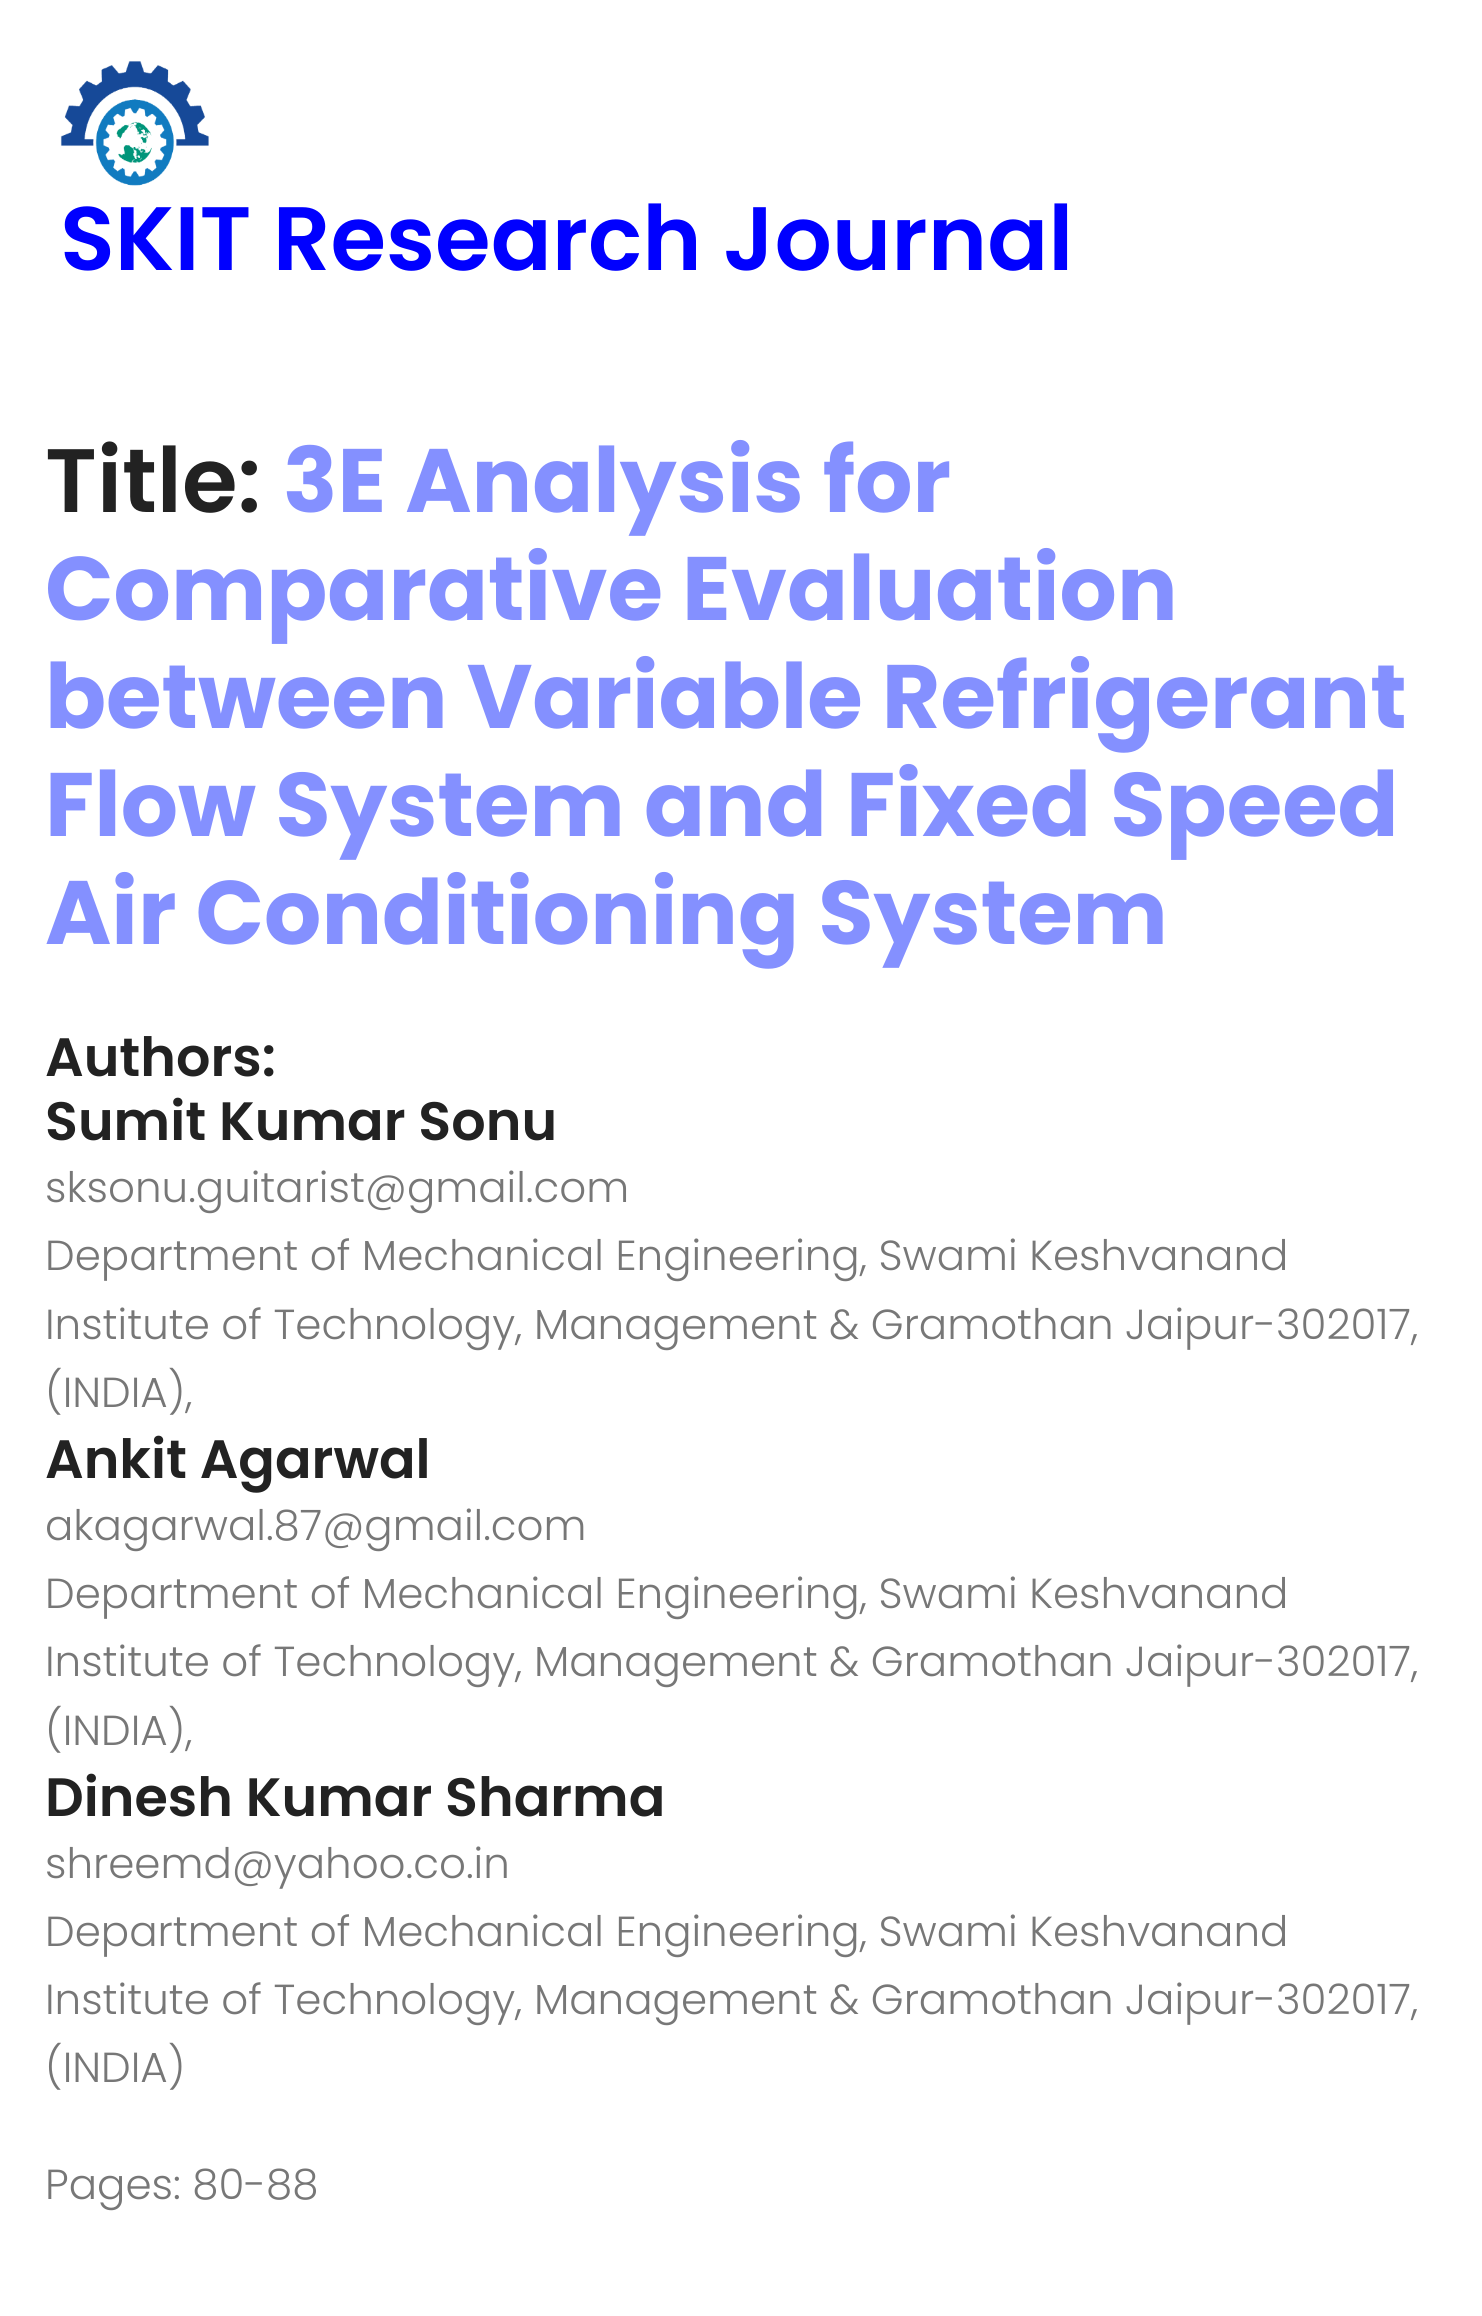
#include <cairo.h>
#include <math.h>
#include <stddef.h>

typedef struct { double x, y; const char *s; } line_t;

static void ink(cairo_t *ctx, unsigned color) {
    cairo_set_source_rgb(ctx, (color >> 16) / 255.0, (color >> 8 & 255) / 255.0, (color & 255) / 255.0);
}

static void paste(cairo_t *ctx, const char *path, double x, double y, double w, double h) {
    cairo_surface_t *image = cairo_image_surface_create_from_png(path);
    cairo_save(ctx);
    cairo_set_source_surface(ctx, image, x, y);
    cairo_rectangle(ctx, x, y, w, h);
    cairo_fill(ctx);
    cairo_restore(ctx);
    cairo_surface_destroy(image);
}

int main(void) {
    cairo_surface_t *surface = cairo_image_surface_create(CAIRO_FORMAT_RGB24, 1482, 2316);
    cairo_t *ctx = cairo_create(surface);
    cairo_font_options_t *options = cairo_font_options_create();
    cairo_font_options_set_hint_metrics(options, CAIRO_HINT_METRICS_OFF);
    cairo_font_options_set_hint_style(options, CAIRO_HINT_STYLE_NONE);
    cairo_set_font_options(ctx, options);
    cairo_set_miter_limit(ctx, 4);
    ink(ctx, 0xFFFFFF);
    cairo_paint(ctx);
    paste(ctx, "media/1.png", 60, 61, 149, 125);
    cairo_select_font_face(ctx, "Poppins SemiBold", CAIRO_FONT_SLANT_NORMAL, CAIRO_FONT_WEIGHT_NORMAL);
    cairo_set_font_size(ctx, 90);
    ink(ctx, 0x0000FF);
    cairo_move_to(ctx, 60, 270);
    cairo_show_text(ctx, "SKIT Research Journal");
    ink(ctx, 0x222222);
    cairo_move_to(ctx, 45, 512);
    cairo_show_text(ctx, "Title:");
    cairo_select_font_face(ctx, "Poppins", CAIRO_FONT_SLANT_NORMAL, CAIRO_FONT_WEIGHT_BOLD);
    ink(ctx, 0x8490FF);
    {
        static const line_t items[] = {
            {283, 512, "3E Analysis for"},
            {45, 620, "Comparative Evaluation"},
            {45, 728, "between Variable Refrigerant"},
            {45, 836, "Flow System and Fixed Speed"},
            {45, 944, "Air Conditioning System"},
        };
        for (size_t i = 0; i < sizeof items / sizeof *items; i++) {
            cairo_move_to(ctx, items[i].x, items[i].y);
            cairo_show_text(ctx, items[i].s);
        }
    }
    cairo_select_font_face(ctx, "Poppins SemiBold", CAIRO_FONT_SLANT_NORMAL, CAIRO_FONT_WEIGHT_NORMAL);
    cairo_set_font_size(ctx, 54);
    ink(ctx, 0x222222);
    cairo_move_to(ctx, 45, 1076);
    cairo_show_text(ctx, "Authors:");
    cairo_move_to(ctx, 45, 1140);
    cairo_show_text(ctx, "Sumit Kumar Sonu");
    cairo_select_font_face(ctx, "Poppins Light", CAIRO_FONT_SLANT_NORMAL, CAIRO_FONT_WEIGHT_NORMAL);
    cairo_set_font_size(ctx, 42);
    ink(ctx, 0x777777);
    {
        static const line_t items[] = {
            {45, 1202, "sksonu.guitarist@gmail.com"},
            {45, 1270, "Department of Mechanical Engineering, Swami Keshvanand"},
            {45, 1339, "Institute of Technology, Management & Gramothan Jaipur-302017,"},
            {45, 1407, "(INDIA),"},
        };
        for (size_t i = 0; i < sizeof items / sizeof *items; i++) {
            cairo_move_to(ctx, items[i].x, items[i].y);
            cairo_show_text(ctx, items[i].s);
        }
    }
    cairo_select_font_face(ctx, "Poppins SemiBold", CAIRO_FONT_SLANT_NORMAL, CAIRO_FONT_WEIGHT_NORMAL);
    cairo_set_font_size(ctx, 54);
    ink(ctx, 0x222222);
    cairo_move_to(ctx, 45, 1478);
    cairo_show_text(ctx, "Ankit Agarwal");
    cairo_select_font_face(ctx, "Poppins Light", CAIRO_FONT_SLANT_NORMAL, CAIRO_FONT_WEIGHT_NORMAL);
    cairo_set_font_size(ctx, 42);
    ink(ctx, 0x777777);
    {
        static const line_t items[] = {
            {45, 1540, "akagarwal.87@gmail.com"},
            {45, 1608, "Department of Mechanical Engineering, Swami Keshvanand"},
            {45, 1676, "Institute of Technology, Management & Gramothan Jaipur-302017,"},
            {45, 1745, "(INDIA),"},
        };
        for (size_t i = 0; i < sizeof items / sizeof *items; i++) {
            cairo_move_to(ctx, items[i].x, items[i].y);
            cairo_show_text(ctx, items[i].s);
        }
    }
    cairo_select_font_face(ctx, "Poppins SemiBold", CAIRO_FONT_SLANT_NORMAL, CAIRO_FONT_WEIGHT_NORMAL);
    cairo_set_font_size(ctx, 54);
    ink(ctx, 0x222222);
    cairo_move_to(ctx, 45, 1816);
    cairo_show_text(ctx, "Dinesh Kumar Sharma");
    cairo_select_font_face(ctx, "Poppins Light", CAIRO_FONT_SLANT_NORMAL, CAIRO_FONT_WEIGHT_NORMAL);
    cairo_set_font_size(ctx, 42);
    ink(ctx, 0x777777);
    {
        static const line_t items[] = {
            {45, 1878, "shreemd@yahoo.co.in"},
            {45, 1946, "Department of Mechanical Engineering, Swami Keshvanand"},
            {45, 2014, "Institute of Technology, Management & Gramothan Jaipur-302017,"},
            {45, 2082, "(INDIA)"},
            {45, 2199, "Pages: 80-88"},
        };
        for (size_t i = 0; i < sizeof items / sizeof *items; i++) {
            cairo_move_to(ctx, items[i].x, items[i].y);
            cairo_show_text(ctx, items[i].s);
        }
    }
    cairo_surface_write_to_png(surface, "image.png");
    cairo_font_options_destroy(options);
    cairo_destroy(ctx);
    cairo_surface_destroy(surface);
    return 0;
}
